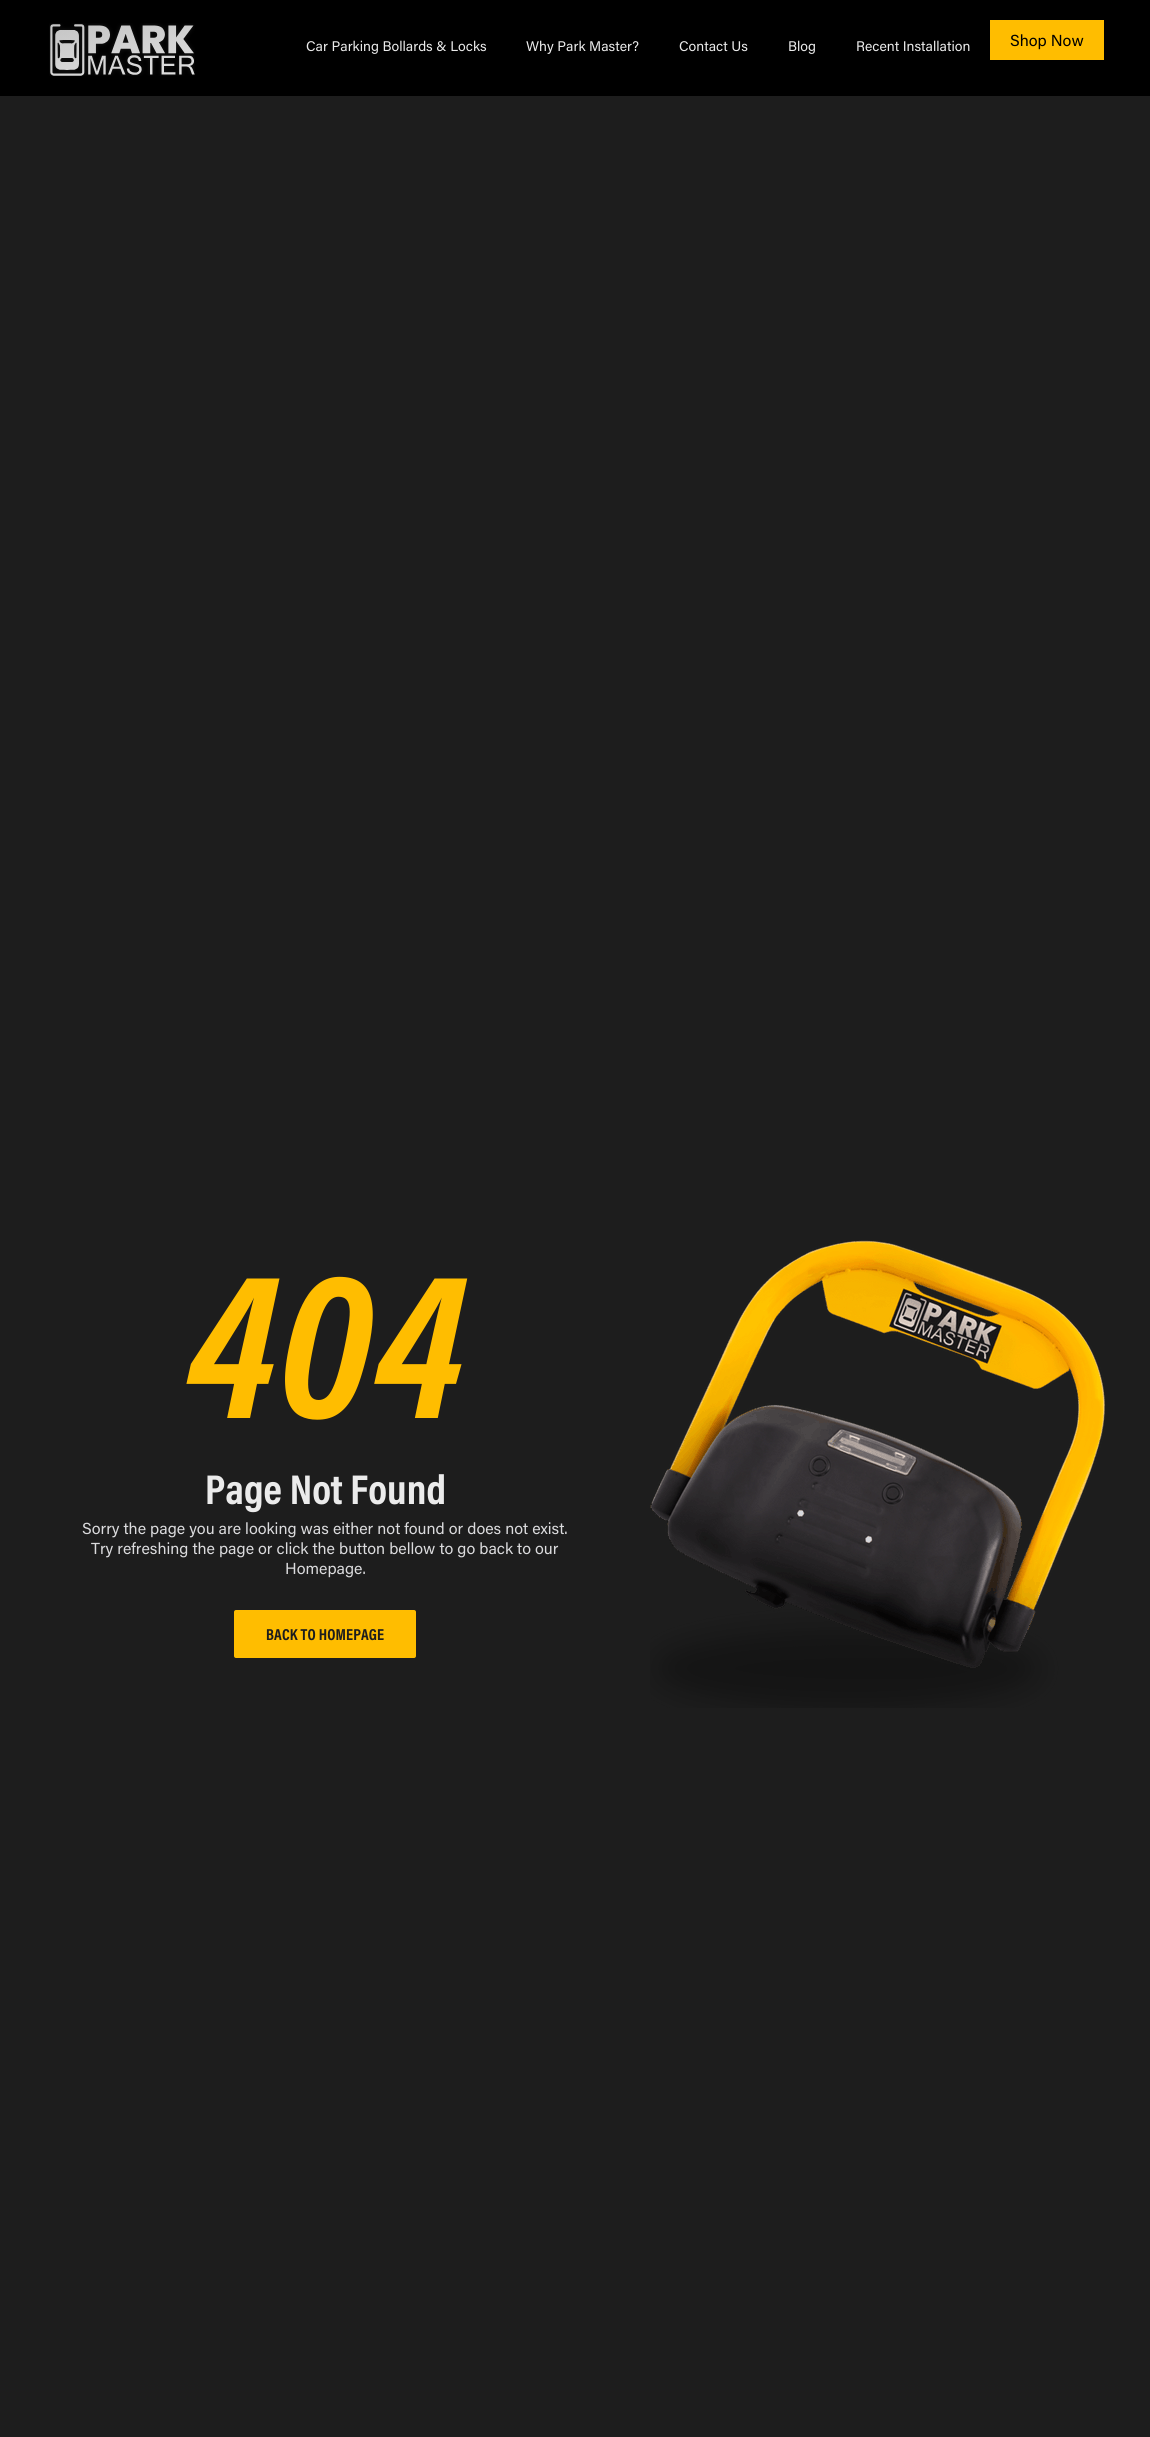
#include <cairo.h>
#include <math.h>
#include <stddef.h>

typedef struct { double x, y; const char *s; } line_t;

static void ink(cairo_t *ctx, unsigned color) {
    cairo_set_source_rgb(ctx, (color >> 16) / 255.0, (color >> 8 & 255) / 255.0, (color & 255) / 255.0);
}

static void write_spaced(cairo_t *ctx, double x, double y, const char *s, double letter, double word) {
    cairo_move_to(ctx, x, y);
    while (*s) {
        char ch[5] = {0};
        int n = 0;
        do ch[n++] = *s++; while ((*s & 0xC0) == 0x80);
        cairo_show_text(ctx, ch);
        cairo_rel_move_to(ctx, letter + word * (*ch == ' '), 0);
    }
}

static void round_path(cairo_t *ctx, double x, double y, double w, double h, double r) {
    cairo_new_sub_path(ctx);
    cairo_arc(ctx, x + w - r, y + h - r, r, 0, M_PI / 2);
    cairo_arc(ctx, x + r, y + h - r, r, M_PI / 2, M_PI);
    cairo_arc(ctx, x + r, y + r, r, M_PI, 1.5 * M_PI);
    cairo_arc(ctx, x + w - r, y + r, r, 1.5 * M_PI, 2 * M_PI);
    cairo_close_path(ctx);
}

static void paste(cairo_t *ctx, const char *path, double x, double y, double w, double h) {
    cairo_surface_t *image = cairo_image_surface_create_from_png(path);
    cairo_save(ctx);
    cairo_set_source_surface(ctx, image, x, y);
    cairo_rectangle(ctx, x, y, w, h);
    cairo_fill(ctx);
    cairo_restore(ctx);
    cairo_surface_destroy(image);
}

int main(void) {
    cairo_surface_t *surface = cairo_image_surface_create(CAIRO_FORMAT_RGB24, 1150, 2437);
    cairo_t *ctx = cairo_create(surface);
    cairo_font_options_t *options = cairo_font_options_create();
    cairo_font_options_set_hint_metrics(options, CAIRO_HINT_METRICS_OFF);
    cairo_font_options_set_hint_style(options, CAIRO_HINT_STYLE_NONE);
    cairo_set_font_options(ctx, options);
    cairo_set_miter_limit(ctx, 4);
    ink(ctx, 0x1D1D1D);
    cairo_paint(ctx);
    ink(ctx, 0x000000);
    cairo_rectangle(ctx, 0, 0, 1150, 96);
    cairo_fill(ctx);
    paste(ctx, "media/1.png", 49, 23, 146, 53);
    cairo_select_font_face(ctx, "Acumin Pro", CAIRO_FONT_SLANT_NORMAL, CAIRO_FONT_WEIGHT_NORMAL);
    cairo_set_font_size(ctx, 14);
    ink(ctx, 0xEBEBEB);
    {
        static const line_t items[] = {
            {306, 51, "Car Parking Bollards & Locks"},
            {526, 51, "Why Park Master?"},
            {679, 51, "Contact Us"},
            {788, 51, "Blog"},
            {856, 51, "Recent Installation"},
        };
        for (size_t i = 0; i < sizeof items / sizeof *items; i++) {
            cairo_move_to(ctx, items[i].x, items[i].y);
            cairo_show_text(ctx, items[i].s);
        }
    }
    ink(ctx, 0xFFBD00);
    cairo_rectangle(ctx, 990, 20, 114, 40);
    cairo_fill(ctx);
    cairo_set_font_size(ctx, 16);
    ink(ctx, 0x000000);
    cairo_move_to(ctx, 1010, 46);
    cairo_show_text(ctx, "Shop Now");
    cairo_select_font_face(ctx, "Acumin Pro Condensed", CAIRO_FONT_SLANT_ITALIC, CAIRO_FONT_WEIGHT_BOLD);
    cairo_set_font_size(ctx, 212);
    ink(ctx, 0xFFBD00);
    cairo_move_to(ctx, 186, 1418);
    cairo_show_text(ctx, "404");
    cairo_select_font_face(ctx, "Acumin Pro Condensed", CAIRO_FONT_SLANT_NORMAL, CAIRO_FONT_WEIGHT_BOLD);
    cairo_set_font_size(ctx, 42);
    ink(ctx, 0xEBEBEB);
    cairo_move_to(ctx, 205, 1504);
    cairo_show_text(ctx, "Page Not Found");
    cairo_select_font_face(ctx, "Acumin Pro", CAIRO_FONT_SLANT_NORMAL, CAIRO_FONT_WEIGHT_NORMAL);
    cairo_set_font_size(ctx, 16);
    ink(ctx, 0xDBDBDD);
    {
        static const line_t items[] = {
            {82, 1534, "Sorry the page you are looking was either not found or does not exist."},
            {91, 1554, "Try refreshing the page or click the button bellow to go back to our"},
            {285, 1574, "Homepage."},
        };
        for (size_t i = 0; i < sizeof items / sizeof *items; i++) {
            cairo_move_to(ctx, items[i].x, items[i].y);
            cairo_show_text(ctx, items[i].s);
        }
    }
    ink(ctx, 0xFFBD00);
    round_path(ctx, 234, 1610, 182, 48, 2);
    cairo_fill(ctx);
    cairo_select_font_face(ctx, "Acumin Pro Condensed", CAIRO_FONT_SLANT_NORMAL, CAIRO_FONT_WEIGHT_BOLD);
    ink(ctx, 0x1D1D1D);
    write_spaced(ctx, 266, 1640, "BACK TO HOMEPAGE", 0.1, 0);
    paste(ctx, "media/2.png", 650, 1240, 455, 468);
    cairo_surface_write_to_png(surface, "image.png");
    cairo_font_options_destroy(options);
    cairo_destroy(ctx);
    cairo_surface_destroy(surface);
    return 0;
}
